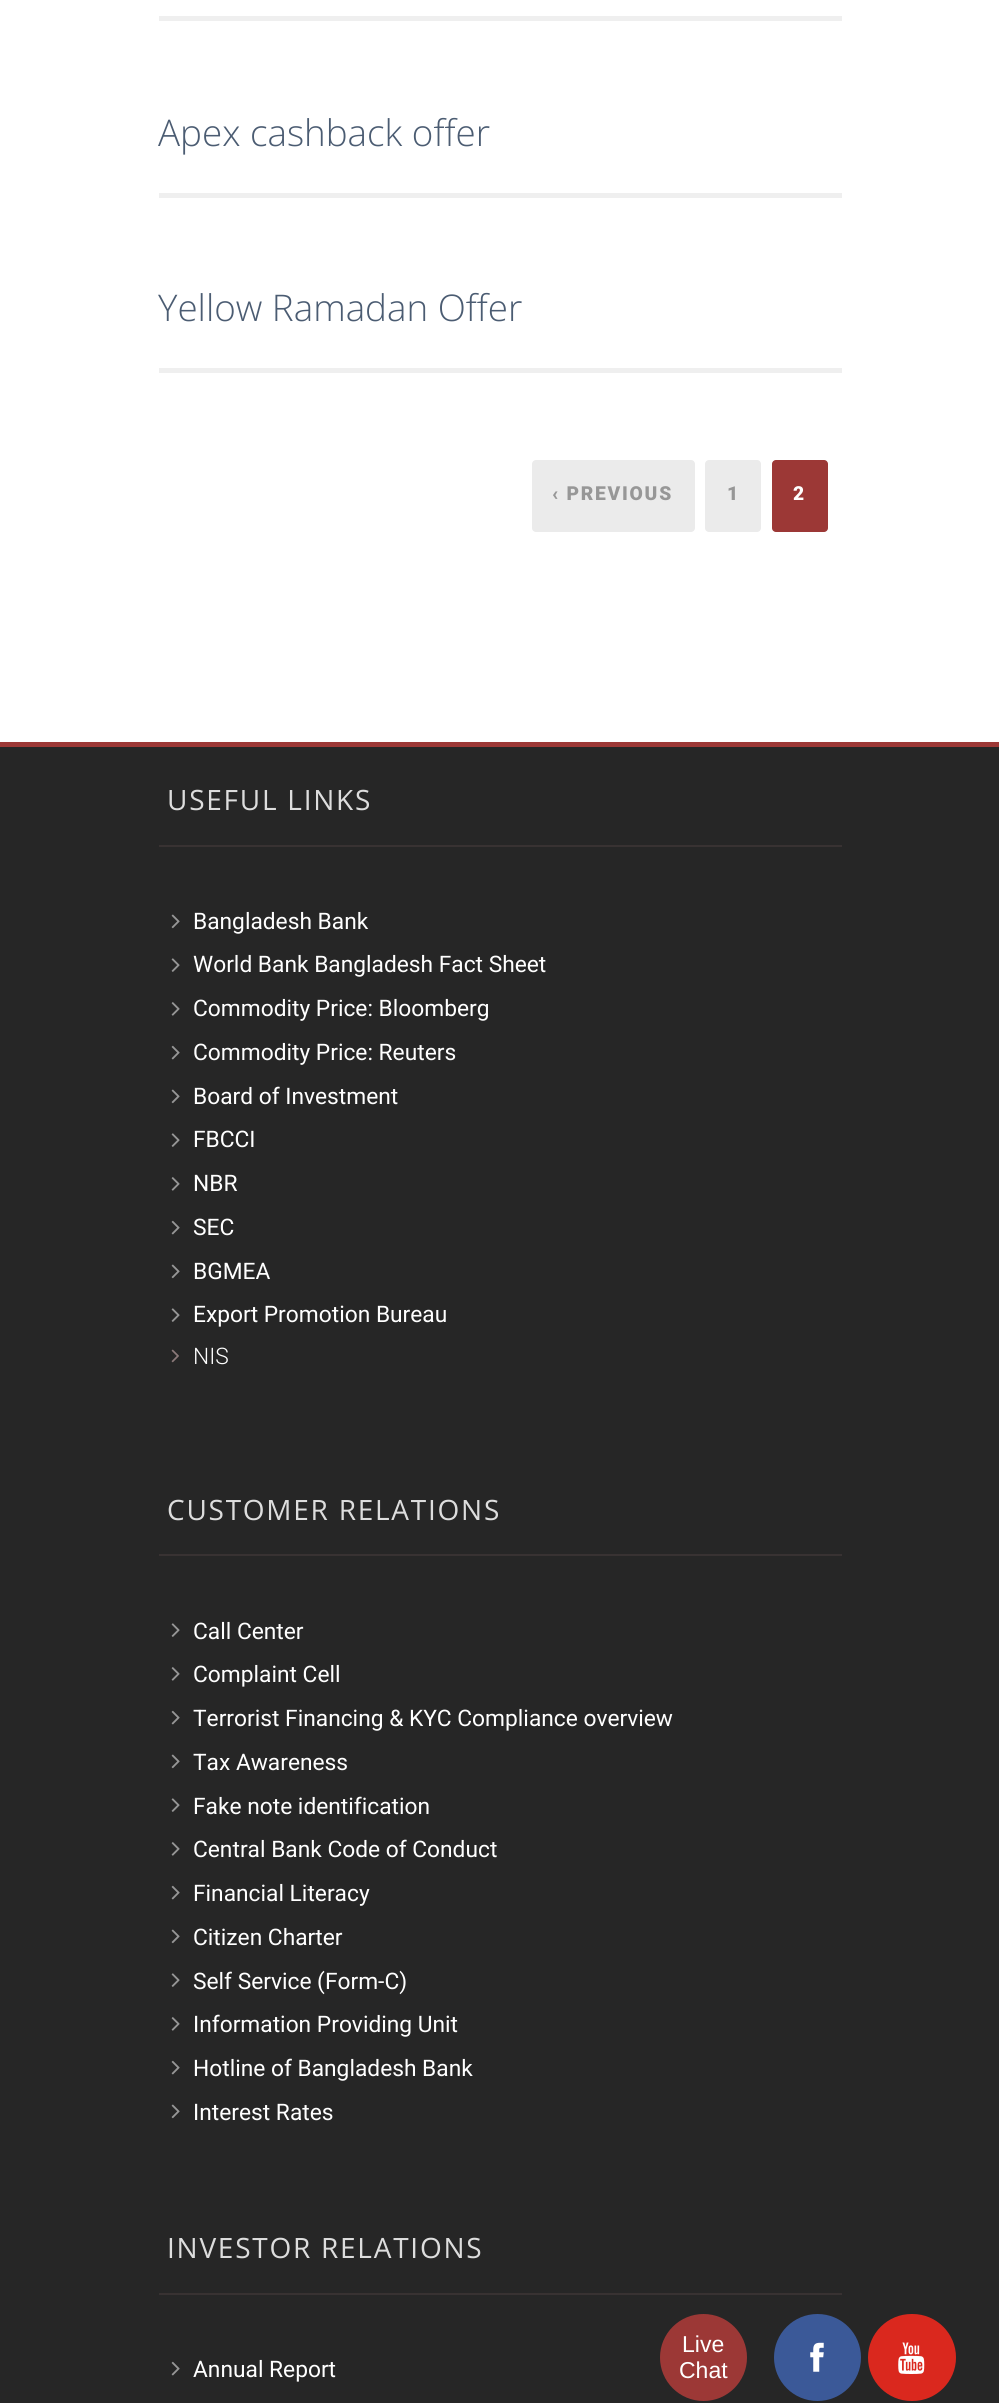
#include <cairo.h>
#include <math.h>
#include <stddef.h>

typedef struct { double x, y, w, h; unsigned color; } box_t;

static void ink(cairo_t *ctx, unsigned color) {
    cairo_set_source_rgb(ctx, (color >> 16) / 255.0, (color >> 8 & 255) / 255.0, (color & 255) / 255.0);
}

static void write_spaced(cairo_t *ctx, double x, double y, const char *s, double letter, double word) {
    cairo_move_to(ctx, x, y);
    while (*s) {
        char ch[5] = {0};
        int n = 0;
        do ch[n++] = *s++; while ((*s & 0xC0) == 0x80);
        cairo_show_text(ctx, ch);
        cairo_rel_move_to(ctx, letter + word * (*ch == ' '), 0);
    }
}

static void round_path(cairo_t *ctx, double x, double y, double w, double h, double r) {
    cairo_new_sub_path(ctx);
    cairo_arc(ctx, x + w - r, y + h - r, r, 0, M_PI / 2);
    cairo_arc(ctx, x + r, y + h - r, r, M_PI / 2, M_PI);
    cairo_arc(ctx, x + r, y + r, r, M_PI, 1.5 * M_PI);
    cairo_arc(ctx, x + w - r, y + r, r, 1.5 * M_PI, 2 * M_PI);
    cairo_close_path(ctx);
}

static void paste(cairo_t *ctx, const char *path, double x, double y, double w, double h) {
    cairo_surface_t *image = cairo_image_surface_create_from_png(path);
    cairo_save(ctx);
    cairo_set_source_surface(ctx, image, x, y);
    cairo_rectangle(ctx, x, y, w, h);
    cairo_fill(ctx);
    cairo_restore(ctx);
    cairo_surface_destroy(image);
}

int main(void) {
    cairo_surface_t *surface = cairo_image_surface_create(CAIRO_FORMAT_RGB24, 999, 2403);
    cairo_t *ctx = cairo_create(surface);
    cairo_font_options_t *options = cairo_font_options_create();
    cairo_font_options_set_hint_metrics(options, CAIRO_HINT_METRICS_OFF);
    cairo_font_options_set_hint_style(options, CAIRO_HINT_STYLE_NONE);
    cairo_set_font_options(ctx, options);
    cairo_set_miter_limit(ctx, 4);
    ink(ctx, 0xFFFFFF);
    cairo_paint(ctx);
    ink(ctx, 0xEFEFEF);
    cairo_rectangle(ctx, 159, 16, 683, 5);
    cairo_fill(ctx);
    cairo_rectangle(ctx, 159, 193, 683, 5);
    cairo_fill(ctx);
    cairo_select_font_face(ctx, "Open Sans Light", CAIRO_FONT_SLANT_NORMAL, CAIRO_FONT_WEIGHT_NORMAL);
    cairo_set_font_size(ctx, 36.75);
    ink(ctx, 0x4B5C72);
    cairo_move_to(ctx, 158, 146);
    cairo_show_text(ctx, "Apex cashback offer");
    ink(ctx, 0xEFEFEF);
    cairo_rectangle(ctx, 159, 368, 683, 5);
    cairo_fill(ctx);
    ink(ctx, 0x4B5C72);
    cairo_move_to(ctx, 158, 321);
    cairo_show_text(ctx, "Yellow Ramadan Offer");
    ink(ctx, 0xEBEBEB);
    round_path(ctx, 532, 460, 163, 72, 4);
    cairo_fill(ctx);
    cairo_select_font_face(ctx, "Roboto Black", CAIRO_FONT_SLANT_NORMAL, CAIRO_FONT_WEIGHT_NORMAL);
    cairo_set_font_size(ctx, 19.25);
    ink(ctx, 0x979797);
    write_spaced(ctx, 552, 500, "‹ PREVIOUS", 1.75, 0);
    ink(ctx, 0xEBEBEB);
    round_path(ctx, 705, 460, 56, 72, 4);
    cairo_fill(ctx);
    ink(ctx, 0x979797);
    write_spaced(ctx, 727, 500, "1", 1.75, 0);
    ink(ctx, 0x9C3836);
    round_path(ctx, 772, 460, 56, 72, 4);
    cairo_fill(ctx);
    ink(ctx, 0xFFFFFF);
    write_spaced(ctx, 793, 500, "2", 1.75, 0);
    {
        static const box_t items[] = {
            {0, 747, 999, 1656, 0x262626},
            {0, 742, 999, 5, 0x9C3836},
            {159, 845, 683, 2, 0x383232},
        };
        for (size_t i = 0; i < sizeof items / sizeof *items; i++) {
            ink(ctx, items[i].color);
            cairo_rectangle(ctx, items[i].x, items[i].y, items[i].w, items[i].h);
            cairo_fill(ctx);
        }
    }
    cairo_select_font_face(ctx, "Open Sans", CAIRO_FONT_SLANT_NORMAL, CAIRO_FONT_WEIGHT_NORMAL);
    cairo_set_font_size(ctx, 28);
    ink(ctx, 0xDDDDDD);
    write_spaced(ctx, 167, 810, "USEFUL LINKS", 1.75, 0);
    paste(ctx, "media/1.png", 171, 914, 9, 15);
    cairo_select_font_face(ctx, "Roboto", CAIRO_FONT_SLANT_NORMAL, CAIRO_FONT_WEIGHT_NORMAL);
    cairo_set_font_size(ctx, 22.75);
    ink(ctx, 0xFFFFFF);
    cairo_move_to(ctx, 193, 929);
    cairo_show_text(ctx, "Bangladesh Bank");
    paste(ctx, "media/2.png", 171, 958, 9, 14);
    cairo_move_to(ctx, 193, 972);
    cairo_show_text(ctx, "World Bank Bangladesh Fact Sheet");
    paste(ctx, "media/3.png", 171, 1002, 9, 14);
    cairo_move_to(ctx, 193, 1016);
    cairo_show_text(ctx, "Commodity Price: Bloomberg");
    paste(ctx, "media/4.png", 171, 1045, 9, 15);
    cairo_move_to(ctx, 193, 1060);
    cairo_show_text(ctx, "Commodity Price: Reuters");
    paste(ctx, "media/1.png", 171, 1089, 9, 15);
    cairo_move_to(ctx, 193, 1104);
    cairo_show_text(ctx, "Board of Investment");
    paste(ctx, "media/2.png", 171, 1133, 9, 14);
    cairo_move_to(ctx, 193, 1147);
    cairo_show_text(ctx, "FBCCI");
    paste(ctx, "media/3.png", 171, 1177, 9, 14);
    cairo_move_to(ctx, 193, 1191);
    cairo_show_text(ctx, "NBR");
    paste(ctx, "media/4.png", 171, 1220, 9, 15);
    cairo_move_to(ctx, 193, 1235);
    cairo_show_text(ctx, "SEC");
    paste(ctx, "media/1.png", 171, 1264, 9, 15);
    cairo_move_to(ctx, 193, 1279);
    cairo_show_text(ctx, "BGMEA");
    paste(ctx, "media/2.png", 171, 1308, 9, 14);
    cairo_move_to(ctx, 193, 1322);
    cairo_show_text(ctx, "Export Promotion Bureau");
    paste(ctx, "media/5.png", 171, 1349, 8, 14);
    cairo_select_font_face(ctx, "Roboto Light", CAIRO_FONT_SLANT_NORMAL, CAIRO_FONT_WEIGHT_NORMAL);
    cairo_move_to(ctx, 193, 1364);
    cairo_show_text(ctx, "NIS");
    ink(ctx, 0x383232);
    cairo_rectangle(ctx, 159, 1554, 683, 2);
    cairo_fill(ctx);
    cairo_select_font_face(ctx, "Open Sans", CAIRO_FONT_SLANT_NORMAL, CAIRO_FONT_WEIGHT_NORMAL);
    cairo_set_font_size(ctx, 28);
    ink(ctx, 0xDDDDDD);
    write_spaced(ctx, 167, 1520, "CUSTOMER RELATIONS", 1.75, 0);
    paste(ctx, "media/2.png", 171, 1623, 9, 14);
    cairo_select_font_face(ctx, "Roboto", CAIRO_FONT_SLANT_NORMAL, CAIRO_FONT_WEIGHT_NORMAL);
    cairo_set_font_size(ctx, 22.75);
    ink(ctx, 0xFFFFFF);
    cairo_move_to(ctx, 193, 1639);
    cairo_show_text(ctx, "Call Center");
    paste(ctx, "media/3.png", 171, 1667, 9, 14);
    cairo_move_to(ctx, 193, 1682);
    cairo_show_text(ctx, "Complaint Cell");
    paste(ctx, "media/4.png", 171, 1710, 9, 15);
    cairo_move_to(ctx, 193, 1726);
    cairo_show_text(ctx, "Terrorist Financing & KYC Compliance overview");
    paste(ctx, "media/1.png", 171, 1754, 9, 15);
    cairo_move_to(ctx, 193, 1770);
    cairo_show_text(ctx, "Tax Awareness");
    paste(ctx, "media/2.png", 171, 1798, 9, 14);
    cairo_move_to(ctx, 193, 1814);
    cairo_show_text(ctx, "Fake note identification");
    paste(ctx, "media/3.png", 171, 1842, 9, 14);
    cairo_move_to(ctx, 193, 1857);
    cairo_show_text(ctx, "Central Bank Code of Conduct");
    paste(ctx, "media/4.png", 171, 1885, 9, 15);
    cairo_move_to(ctx, 193, 1901);
    cairo_show_text(ctx, "Financial Literacy");
    paste(ctx, "media/1.png", 171, 1929, 9, 15);
    cairo_move_to(ctx, 193, 1945);
    cairo_show_text(ctx, "Citizen Charter");
    paste(ctx, "media/2.png", 171, 1973, 9, 14);
    cairo_move_to(ctx, 193, 1989);
    cairo_show_text(ctx, "Self Service (Form-C)");
    paste(ctx, "media/3.png", 171, 2017, 9, 14);
    cairo_move_to(ctx, 193, 2032);
    cairo_show_text(ctx, "Information Providing Unit");
    paste(ctx, "media/4.png", 171, 2060, 9, 15);
    cairo_move_to(ctx, 193, 2076);
    cairo_show_text(ctx, "Hotline of Bangladesh Bank");
    paste(ctx, "media/1.png", 171, 2104, 9, 15);
    cairo_move_to(ctx, 193, 2120);
    cairo_show_text(ctx, "Interest Rates");
    ink(ctx, 0x383232);
    cairo_rectangle(ctx, 159, 2293, 683, 2);
    cairo_fill(ctx);
    cairo_select_font_face(ctx, "Open Sans", CAIRO_FONT_SLANT_NORMAL, CAIRO_FONT_WEIGHT_NORMAL);
    cairo_set_font_size(ctx, 28);
    ink(ctx, 0xDDDDDD);
    write_spaced(ctx, 167, 2258, "INVESTOR RELATIONS", 1.75, 0);
    paste(ctx, "media/4.png", 171, 2361, 9, 15);
    cairo_select_font_face(ctx, "Roboto", CAIRO_FONT_SLANT_NORMAL, CAIRO_FONT_WEIGHT_NORMAL);
    cairo_set_font_size(ctx, 22.75);
    ink(ctx, 0xFFFFFF);
    cairo_move_to(ctx, 193, 2377);
    cairo_show_text(ctx, "Annual Report");
    ink(ctx, 0x9C3836);
    cairo_new_path(ctx);
    cairo_arc(ctx, 703.5, 2357.5, 43.5, 0, 2 * M_PI);
    cairo_fill(ctx);
    cairo_select_font_face(ctx, "Liberation Sans", CAIRO_FONT_SLANT_NORMAL, CAIRO_FONT_WEIGHT_NORMAL);
    cairo_set_font_size(ctx, 23);
    ink(ctx, 0xFFFFFF);
    cairo_move_to(ctx, 682, 2352);
    cairo_show_text(ctx, "Live");
    cairo_move_to(ctx, 679, 2378);
    cairo_show_text(ctx, "Chat");
    ink(ctx, 0x3B5998);
    cairo_new_path(ctx);
    cairo_arc(ctx, 817.5, 2357.5, 43.5, 0, 2 * M_PI);
    cairo_fill(ctx);
    paste(ctx, "media/6.png", 810, 2342, 14, 30);
    ink(ctx, 0xDA281E);
    round_path(ctx, 868, 2314, 88, 87, 43.5);
    cairo_fill(ctx);
    paste(ctx, "media/7.png", 898, 2342, 27, 32);
    cairo_surface_write_to_png(surface, "image.png");
    cairo_font_options_destroy(options);
    cairo_destroy(ctx);
    cairo_surface_destroy(surface);
    return 0;
}
